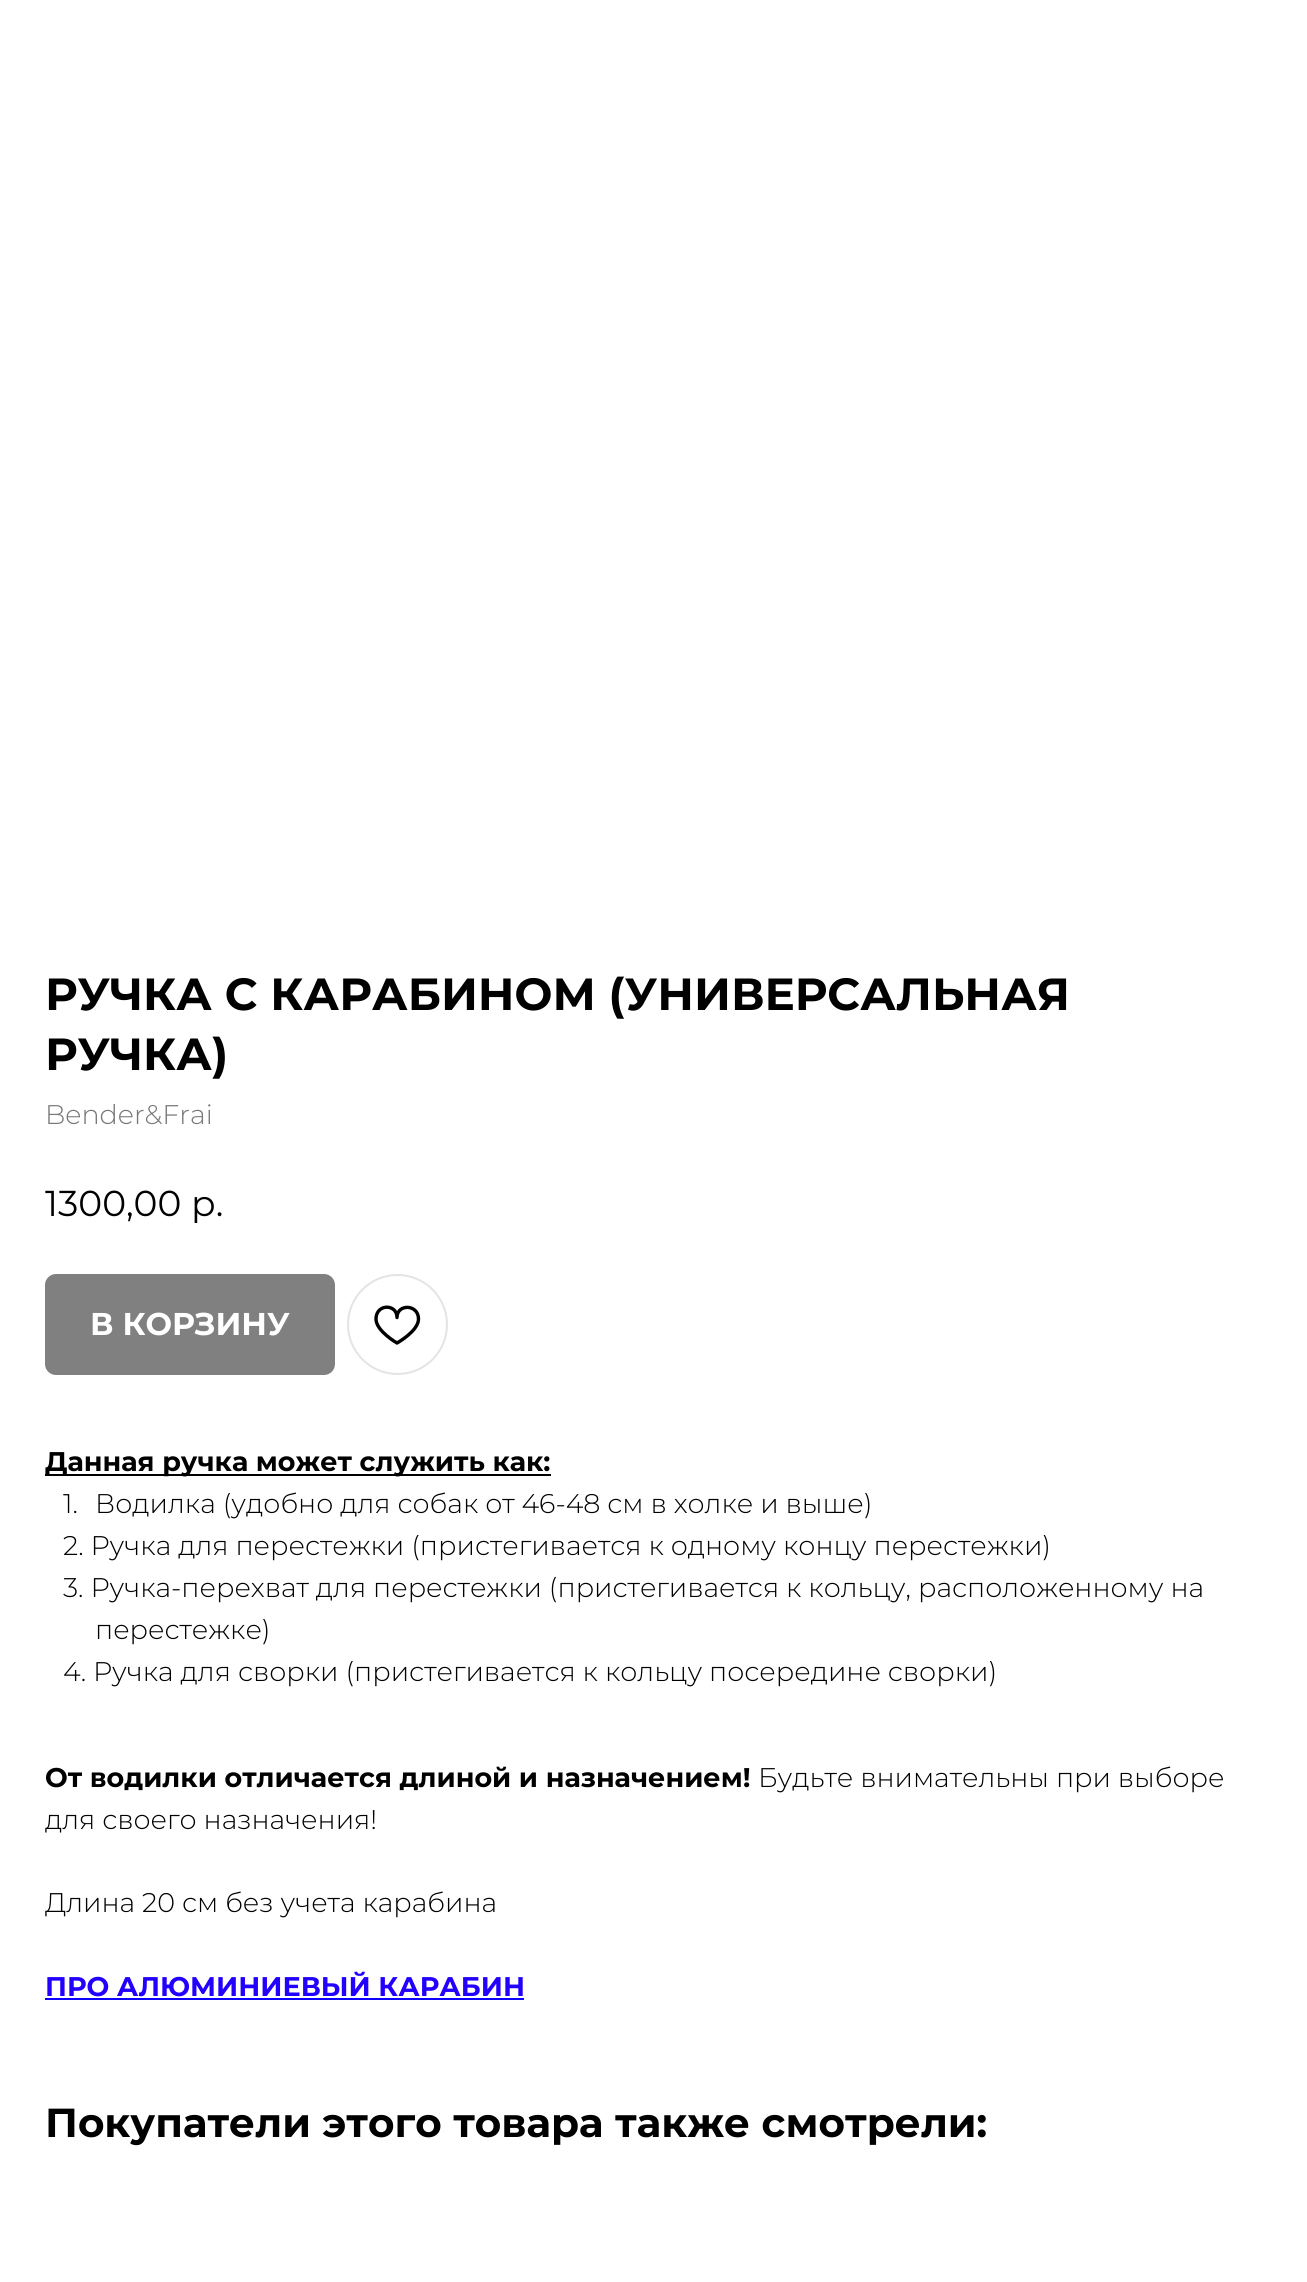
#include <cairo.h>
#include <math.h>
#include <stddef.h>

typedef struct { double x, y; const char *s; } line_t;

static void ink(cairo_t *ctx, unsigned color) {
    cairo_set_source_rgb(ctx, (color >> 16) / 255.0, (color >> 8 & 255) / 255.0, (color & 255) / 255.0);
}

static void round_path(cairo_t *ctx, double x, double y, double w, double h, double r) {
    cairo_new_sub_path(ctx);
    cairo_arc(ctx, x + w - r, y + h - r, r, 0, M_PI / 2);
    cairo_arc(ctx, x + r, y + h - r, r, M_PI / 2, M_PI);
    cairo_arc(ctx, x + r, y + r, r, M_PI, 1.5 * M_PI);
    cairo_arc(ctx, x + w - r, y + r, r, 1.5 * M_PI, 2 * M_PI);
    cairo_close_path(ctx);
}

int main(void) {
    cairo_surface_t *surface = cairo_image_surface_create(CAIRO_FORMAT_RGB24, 1307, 2282);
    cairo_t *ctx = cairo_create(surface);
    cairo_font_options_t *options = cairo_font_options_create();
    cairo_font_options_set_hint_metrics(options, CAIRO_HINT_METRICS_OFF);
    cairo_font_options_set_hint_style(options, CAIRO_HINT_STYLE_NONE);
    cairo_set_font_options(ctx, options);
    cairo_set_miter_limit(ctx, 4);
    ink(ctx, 0xFFFFFF);
    cairo_paint(ctx);
    cairo_select_font_face(ctx, "Montserrat", CAIRO_FONT_SLANT_NORMAL, CAIRO_FONT_WEIGHT_BOLD);
    cairo_set_font_size(ctx, 45);
    ink(ctx, 0x000000);
    cairo_move_to(ctx, 45, 1010);
    cairo_show_text(ctx, "РУЧКА С КАРАБИНОМ (УНИВЕРСАЛЬНАЯ");
    cairo_move_to(ctx, 45, 1070);
    cairo_show_text(ctx, "РУЧКА)");
    cairo_select_font_face(ctx, "Montserrat Light", CAIRO_FONT_SLANT_NORMAL, CAIRO_FONT_WEIGHT_NORMAL);
    cairo_set_font_size(ctx, 27);
    ink(ctx, 0x777777);
    cairo_move_to(ctx, 45, 1124);
    cairo_show_text(ctx, "Bender&Frai");
    cairo_select_font_face(ctx, "Montserrat", CAIRO_FONT_SLANT_NORMAL, CAIRO_FONT_WEIGHT_NORMAL);
    cairo_set_font_size(ctx, 36);
    ink(ctx, 0x000000);
    cairo_move_to(ctx, 45, 1216);
    cairo_show_text(ctx, "1300,00");
    cairo_move_to(ctx, 191, 1216);
    cairo_show_text(ctx, "р.");
    ink(ctx, 0x808080);
    round_path(ctx, 45, 1274, 290, 101, 11);
    cairo_fill(ctx);
    cairo_select_font_face(ctx, "Montserrat", CAIRO_FONT_SLANT_NORMAL, CAIRO_FONT_WEIGHT_BOLD);
    cairo_set_font_size(ctx, 31.5);
    ink(ctx, 0xFFFFFF);
    cairo_move_to(ctx, 90, 1335);
    cairo_show_text(ctx, "В КОРЗИНУ");
    cairo_new_path(ctx);
    cairo_arc(ctx, 397.5, 1324.5, 49.5, 0, 2 * M_PI);
    ink(ctx, 0xE4E4E4);
    cairo_stroke(ctx);
    cairo_new_path(ctx);
    cairo_move_to(ctx, 418.5, 1319);
    cairo_curve_to(ctx, 418.5, 1331, 397, 1343, 397, 1343);
    cairo_curve_to(ctx, 397, 1343, 376, 1331, 376, 1319);
    cairo_curve_to(ctx, 376, 1303.5, 397, 1303.5, 397, 1317.5);
    cairo_curve_to(ctx, 397, 1303.5, 418.5, 1304, 418.5, 1319);
    cairo_close_path(ctx);
    ink(ctx, 0x000000);
    cairo_set_line_width(ctx, 3.4);
    cairo_set_line_join(ctx, CAIRO_LINE_JOIN_ROUND);
    cairo_stroke(ctx);
    cairo_rectangle(ctx, 45, 1474, 506, 2);
    cairo_fill(ctx);
    cairo_set_font_size(ctx, 27);
    cairo_move_to(ctx, 45, 1471);
    cairo_show_text(ctx, "Данная ручка может служить как:");
    cairo_select_font_face(ctx, "Montserrat Light", CAIRO_FONT_SLANT_NORMAL, CAIRO_FONT_WEIGHT_NORMAL);
    {
        static const line_t items[] = {
            {63, 1513, "1."},
            {95, 1513, "Водилка (удобно для собак от 46-48 см в холке и выше)"},
            {63, 1555, "2. Ручка для перестежки (пристегивается к одному концу перестежки)"},
            {63, 1597, "3. Ручка-перехват для перестежки (пристегивается к кольцу, расположенному на"},
            {95, 1639, "перестежке)"},
            {63, 1681, "4. Ручка для сворки (пристегивается к кольцу посередине сворки)"},
        };
        for (size_t i = 0; i < sizeof items / sizeof *items; i++) {
            cairo_move_to(ctx, items[i].x, items[i].y);
            cairo_show_text(ctx, items[i].s);
        }
    }
    cairo_select_font_face(ctx, "Montserrat", CAIRO_FONT_SLANT_NORMAL, CAIRO_FONT_WEIGHT_BOLD);
    cairo_move_to(ctx, 45, 1787);
    cairo_show_text(ctx, "От водилки отличается длиной и назначением!");
    cairo_select_font_face(ctx, "Montserrat Light", CAIRO_FONT_SLANT_NORMAL, CAIRO_FONT_WEIGHT_NORMAL);
    {
        static const line_t items[] = {
            {758, 1787, "Будьте внимательны при выборе"},
            {45, 1829, "для своего назначения!"},
            {45, 1912, "Длина 20 см без учета карабина"},
        };
        for (size_t i = 0; i < sizeof items / sizeof *items; i++) {
            cairo_move_to(ctx, items[i].x, items[i].y);
            cairo_show_text(ctx, items[i].s);
        }
    }
    cairo_select_font_face(ctx, "Montserrat", CAIRO_FONT_SLANT_NORMAL, CAIRO_FONT_WEIGHT_BOLD);
    ink(ctx, 0x2200FF);
    cairo_move_to(ctx, 45, 1996);
    cairo_show_text(ctx, "ПРО АЛЮМИНИЕВЫЙ КАРАБИН");
    ink(ctx, 0x0D00FF);
    cairo_rectangle(ctx, 45, 1998, 479, 2);
    cairo_fill(ctx);
    cairo_set_font_size(ctx, 40.5);
    ink(ctx, 0x000000);
    cairo_move_to(ctx, 45, 2137);
    cairo_show_text(ctx, "Покупатели этого товара также смотрели:");
    cairo_surface_write_to_png(surface, "image.png");
    cairo_font_options_destroy(options);
    cairo_destroy(ctx);
    cairo_surface_destroy(surface);
    return 0;
}
